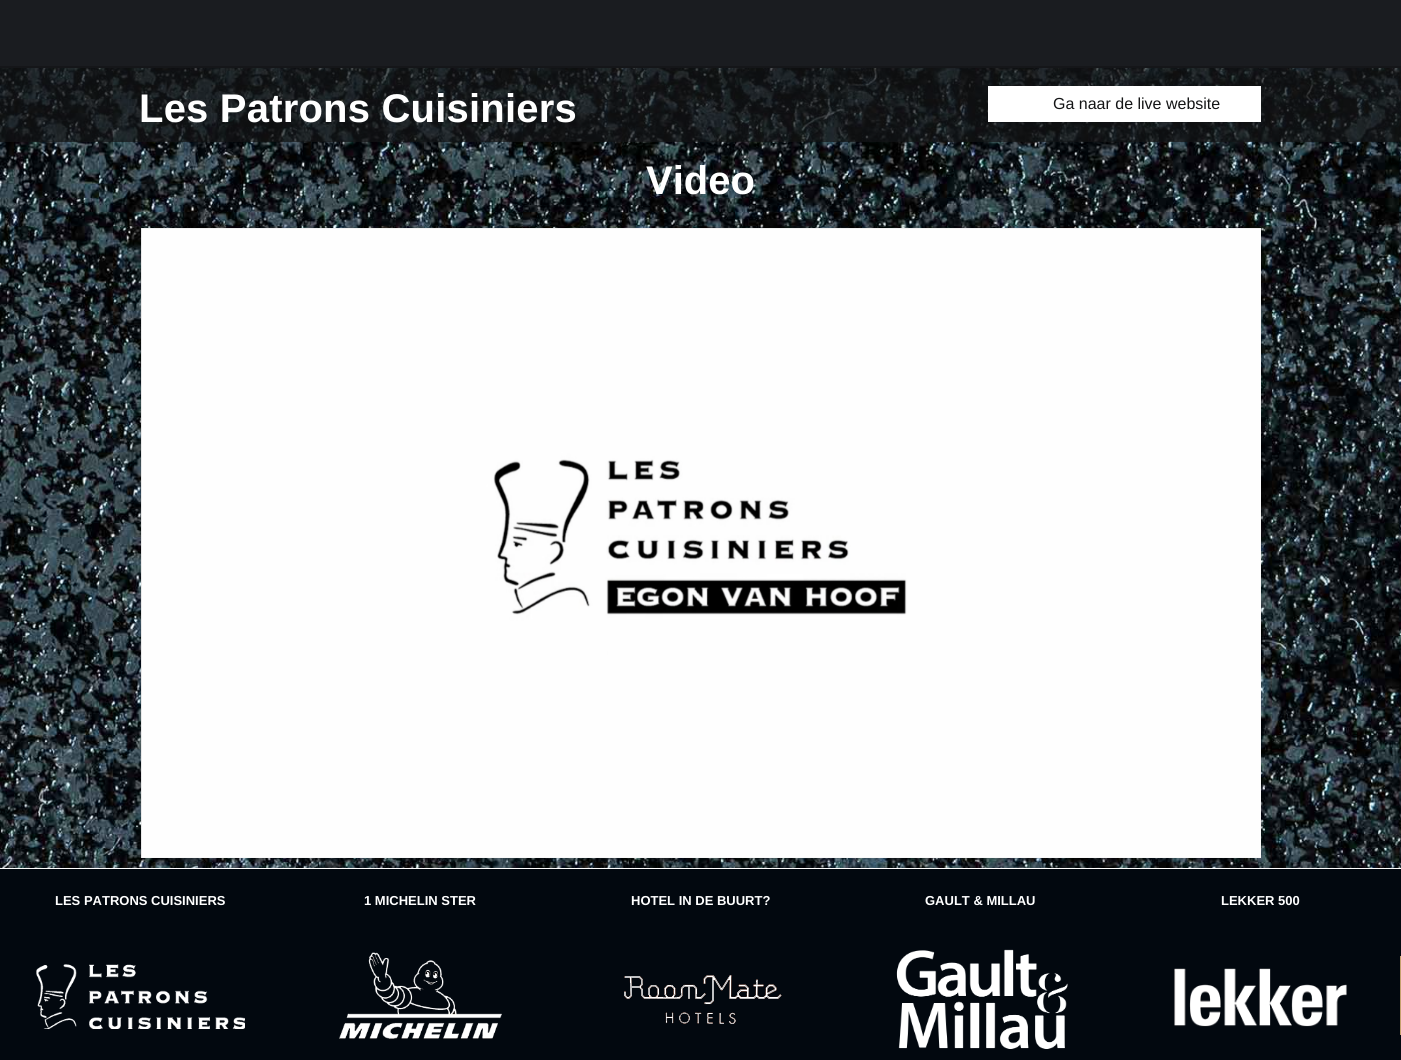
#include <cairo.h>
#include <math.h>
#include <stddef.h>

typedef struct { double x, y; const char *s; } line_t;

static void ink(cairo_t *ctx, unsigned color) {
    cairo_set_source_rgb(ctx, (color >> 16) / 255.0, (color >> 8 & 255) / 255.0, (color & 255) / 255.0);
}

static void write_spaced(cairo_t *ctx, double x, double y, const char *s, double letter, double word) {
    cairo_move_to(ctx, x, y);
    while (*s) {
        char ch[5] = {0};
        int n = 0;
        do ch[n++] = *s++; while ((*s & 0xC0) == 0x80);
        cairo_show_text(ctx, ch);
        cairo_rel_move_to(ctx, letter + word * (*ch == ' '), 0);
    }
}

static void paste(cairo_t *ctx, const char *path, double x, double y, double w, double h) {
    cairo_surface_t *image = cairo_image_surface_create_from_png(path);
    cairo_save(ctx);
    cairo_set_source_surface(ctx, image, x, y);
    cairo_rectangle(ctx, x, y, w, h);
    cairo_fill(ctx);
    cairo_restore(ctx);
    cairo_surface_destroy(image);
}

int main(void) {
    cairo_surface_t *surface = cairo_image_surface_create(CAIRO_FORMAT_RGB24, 1401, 1060);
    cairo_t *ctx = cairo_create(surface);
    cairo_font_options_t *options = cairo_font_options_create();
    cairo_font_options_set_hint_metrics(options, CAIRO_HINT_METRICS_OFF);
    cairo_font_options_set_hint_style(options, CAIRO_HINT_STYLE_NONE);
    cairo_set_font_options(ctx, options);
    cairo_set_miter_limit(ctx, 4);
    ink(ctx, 0xFFFFFF);
    cairo_paint(ctx);
    paste(ctx, "media/1.png", 0, 68, 1401, 800);
    ink(ctx, 0x1A1C20);
    cairo_rectangle(ctx, 0, 0, 1401, 68);
    cairo_fill(ctx);
    cairo_set_source_rgba(ctx, 0.078, 0.082, 0.086, 0.7);
    cairo_rectangle(ctx, 0, 66, 1401, 76);
    cairo_fill(ctx);
    cairo_select_font_face(ctx, "Liberation Sans", CAIRO_FONT_SLANT_NORMAL, CAIRO_FONT_WEIGHT_BOLD);
    cairo_set_font_size(ctx, 40);
    ink(ctx, 0xFFFFFF);
    write_spaced(ctx, 139, 122, "Les Patrons Cuisiniers", 0.2, 0);
    cairo_rectangle(ctx, 988, 86, 273, 36);
    cairo_fill(ctx);
    cairo_select_font_face(ctx, "Liberation Sans", CAIRO_FONT_SLANT_NORMAL, CAIRO_FONT_WEIGHT_NORMAL);
    cairo_set_font_size(ctx, 16);
    ink(ctx, 0x141516);
    cairo_move_to(ctx, 1053, 109);
    cairo_show_text(ctx, "Ga naar de live website");
    cairo_select_font_face(ctx, "Liberation Sans", CAIRO_FONT_SLANT_NORMAL, CAIRO_FONT_WEIGHT_BOLD);
    cairo_set_font_size(ctx, 40);
    ink(ctx, 0xFFFFFF);
    cairo_move_to(ctx, 646, 194);
    cairo_show_text(ctx, "Video");
    paste(ctx, "media/2.png", 141, 228, 1120, 630);
    ink(ctx, 0x02080F);
    cairo_rectangle(ctx, 0, 869, 1401, 191);
    cairo_fill(ctx);
    cairo_set_font_size(ctx, 13);
    ink(ctx, 0xFFFFFF);
    {
        static const line_t items[] = {
            {55, 905, "LES PATRONS CUISINIERS"},
            {364, 905, "1 MICHELIN STER"},
            {631, 905, "HOTEL IN DE BUURT?"},
            {925, 905, "GAULT & MILLAU"},
            {1221, 905, "LEKKER 500"},
        };
        for (size_t i = 0; i < sizeof items / sizeof *items; i++) {
            cairo_move_to(ctx, items[i].x, items[i].y);
            cairo_show_text(ctx, items[i].s);
        }
    }
    paste(ctx, "media/3.png", 36, 964, 209, 65);
    paste(ctx, "media/4.png", 339, 952, 163, 87);
    paste(ctx, "media/5.png", 624, 975, 158, 49);
    paste(ctx, "media/6.png", 896, 949, 172, 100);
    ink(ctx, 0xC5A16E);
    cairo_rectangle(ctx, 1400, 956, 1, 79);
    cairo_fill(ctx);
    paste(ctx, "media/7.png", 1174, 968, 173, 59);
    cairo_surface_write_to_png(surface, "image.png");
    cairo_font_options_destroy(options);
    cairo_destroy(ctx);
    cairo_surface_destroy(surface);
    return 0;
}
